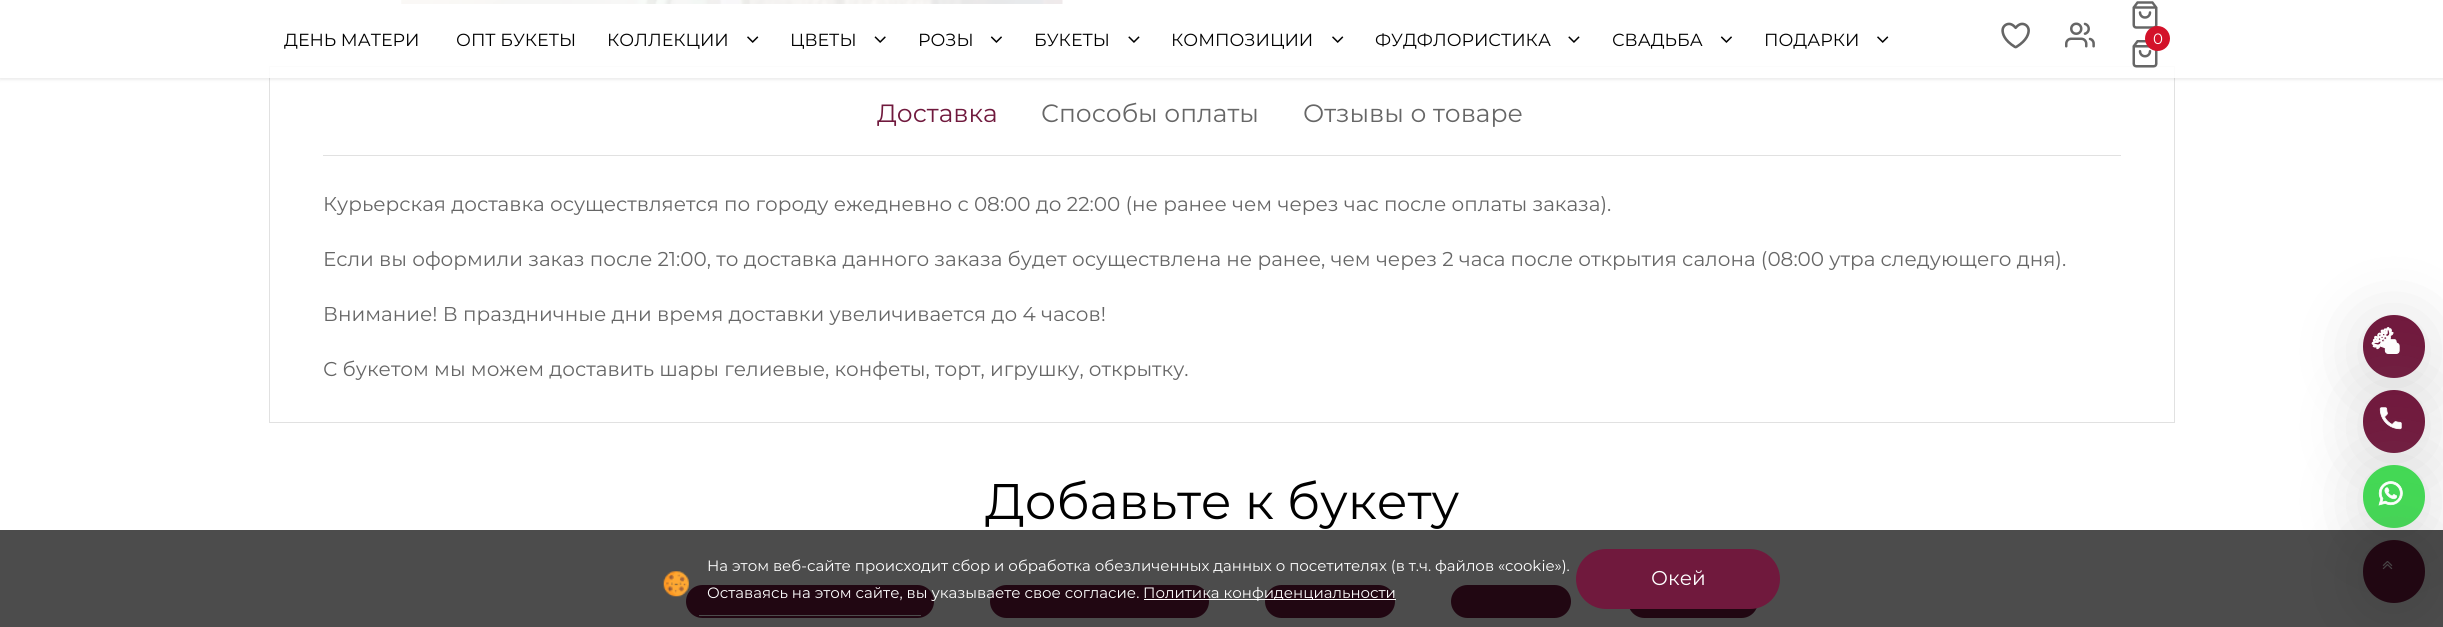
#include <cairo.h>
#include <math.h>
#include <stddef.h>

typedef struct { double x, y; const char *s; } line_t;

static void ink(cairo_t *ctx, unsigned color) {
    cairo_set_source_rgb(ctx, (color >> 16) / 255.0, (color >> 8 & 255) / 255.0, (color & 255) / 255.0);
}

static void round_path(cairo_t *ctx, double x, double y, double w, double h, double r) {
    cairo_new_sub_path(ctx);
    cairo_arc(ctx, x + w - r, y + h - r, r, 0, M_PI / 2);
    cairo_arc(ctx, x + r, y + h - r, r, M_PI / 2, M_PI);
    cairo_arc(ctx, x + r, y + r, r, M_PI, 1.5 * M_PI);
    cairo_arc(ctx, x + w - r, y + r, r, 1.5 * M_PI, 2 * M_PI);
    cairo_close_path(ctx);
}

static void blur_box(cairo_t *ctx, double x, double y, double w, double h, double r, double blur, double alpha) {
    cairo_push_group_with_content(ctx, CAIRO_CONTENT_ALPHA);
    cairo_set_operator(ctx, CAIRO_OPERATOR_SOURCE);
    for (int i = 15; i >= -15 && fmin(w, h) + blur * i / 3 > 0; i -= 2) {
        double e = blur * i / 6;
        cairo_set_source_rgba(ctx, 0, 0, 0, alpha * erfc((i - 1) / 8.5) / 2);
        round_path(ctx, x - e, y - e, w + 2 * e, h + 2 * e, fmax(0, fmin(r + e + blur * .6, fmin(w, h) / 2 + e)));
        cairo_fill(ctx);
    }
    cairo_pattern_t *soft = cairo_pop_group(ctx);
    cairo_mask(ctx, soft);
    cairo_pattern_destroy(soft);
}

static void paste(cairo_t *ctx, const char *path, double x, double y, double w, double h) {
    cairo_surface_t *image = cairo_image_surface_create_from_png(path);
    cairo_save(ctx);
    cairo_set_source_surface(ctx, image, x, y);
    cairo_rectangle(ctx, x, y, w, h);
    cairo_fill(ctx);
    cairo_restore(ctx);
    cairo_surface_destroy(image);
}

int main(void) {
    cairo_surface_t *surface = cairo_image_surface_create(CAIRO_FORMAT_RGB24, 2443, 627);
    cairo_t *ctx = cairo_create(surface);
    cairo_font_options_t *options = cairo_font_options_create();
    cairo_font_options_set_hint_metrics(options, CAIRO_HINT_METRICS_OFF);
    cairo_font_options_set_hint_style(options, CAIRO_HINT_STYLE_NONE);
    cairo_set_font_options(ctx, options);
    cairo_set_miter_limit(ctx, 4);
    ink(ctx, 0xFFFFFF);
    cairo_paint(ctx);
    paste(ctx, "media/9.png", 401, 0, 662, 4);
    cairo_rectangle(ctx, 269.5, 66.5, 1905, 356);
    ink(ctx, 0xE1E1E1);
    cairo_set_line_width(ctx, 1);
    cairo_stroke(ctx);
    cairo_save(ctx);
    cairo_set_fill_rule(ctx, CAIRO_FILL_RULE_EVEN_ODD);
    cairo_new_path(ctx);
    cairo_move_to(ctx, 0, 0);
    cairo_line_to(ctx, 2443, 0);
    cairo_line_to(ctx, 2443, 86);
    cairo_line_to(ctx, 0, 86);
    cairo_close_path(ctx);
    cairo_move_to(ctx, 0, 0);
    cairo_line_to(ctx, 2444, 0);
    cairo_line_to(ctx, 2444, 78);
    cairo_line_to(ctx, 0, 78);
    cairo_close_path(ctx);
    cairo_clip(ctx);
    ink(ctx, 0x000000);
    blur_box(ctx, 0, 1, 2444, 78, 0, 2, 0.11);
    cairo_restore(ctx);
    cairo_set_source_rgba(ctx, 1, 1, 1, 0.9);
    cairo_rectangle(ctx, 0, 0, 2443, 78);
    cairo_fill(ctx);
    cairo_select_font_face(ctx, "Montserrat", CAIRO_FONT_SLANT_NORMAL, CAIRO_FONT_WEIGHT_NORMAL);
    cairo_set_font_size(ctx, 17.5);
    ink(ctx, 0x000000);
    {
        static const line_t items[] = {
            {284, 46, "ДЕНЬ МАТЕРИ"},
            {456, 46, "ОПТ БУКЕТЫ"},
            {607, 46, "КОЛЛЕКЦИИ"},
        };
        for (size_t i = 0; i < sizeof items / sizeof *items; i++) {
            cairo_move_to(ctx, items[i].x, items[i].y);
            cairo_show_text(ctx, items[i].s);
        }
    }
    paste(ctx, "media/1.png", 747, 36, 12, 7);
    cairo_move_to(ctx, 790, 46);
    cairo_show_text(ctx, "ЦВЕТЫ");
    paste(ctx, "media/2.png", 874, 36, 12, 7);
    cairo_move_to(ctx, 918, 46);
    cairo_show_text(ctx, "РОЗЫ");
    paste(ctx, "media/3.png", 990, 36, 12, 7);
    cairo_move_to(ctx, 1034, 46);
    cairo_show_text(ctx, "БУКЕТЫ");
    paste(ctx, "media/4.png", 1128, 36, 12, 7);
    cairo_move_to(ctx, 1171, 46);
    cairo_show_text(ctx, "КОМПОЗИЦИИ");
    paste(ctx, "media/1.png", 1332, 36, 12, 7);
    cairo_move_to(ctx, 1375, 46);
    cairo_show_text(ctx, "ФУДФЛОРИСТИКА");
    paste(ctx, "media/4.png", 1568, 36, 12, 7);
    cairo_move_to(ctx, 1612, 46);
    cairo_show_text(ctx, "СВАДЬБА");
    paste(ctx, "media/3.png", 1720, 36, 12, 7);
    cairo_move_to(ctx, 1764, 46);
    cairo_show_text(ctx, "ПОДАРКИ");
    paste(ctx, "media/1.png", 1877, 36, 12, 7);
    paste(ctx, "media/5.png", 2001, 22, 29, 27);
    paste(ctx, "media/6.png", 2065, 22, 30, 26);
    paste(ctx, "media/7.png", 2132, 1, 26, 28);
    paste(ctx, "media/8.png", 2132, 40, 26, 28);
    ink(ctx, 0xD3122A);
    cairo_arc(ctx, 2157.5, 38.5, 12.5, 0, 2 * M_PI);
    cairo_fill(ctx);
    cairo_set_font_size(ctx, 15);
    ink(ctx, 0xFFFFFF);
    cairo_move_to(ctx, 2153, 44);
    cairo_show_text(ctx, "0");
    ink(ctx, 0xE1E1E1);
    cairo_rectangle(ctx, 323, 155, 1798, 1);
    cairo_fill(ctx);
    cairo_set_font_size(ctx, 25);
    ink(ctx, 0x70193D);
    cairo_move_to(ctx, 877, 122);
    cairo_show_text(ctx, "Доставка");
    ink(ctx, 0x666666);
    cairo_move_to(ctx, 1041, 122);
    cairo_show_text(ctx, "Способы оплаты");
    cairo_move_to(ctx, 1303, 122);
    cairo_show_text(ctx, "Отзывы о товаре");
    cairo_set_font_size(ctx, 20);
    {
        static const line_t items[] = {
            {323, 211, "Курьерская доставка осуществляется по городу ежедневно с 08:00 до 22:00 (не ранее чем через час после оплаты заказа)."},
            {323, 266, "Если вы оформили заказ после 21:00, то доставка данного заказа будет осуществлена не ранее, чем через 2 часа после открытия салона (08:00 утра следующего дня)."},
            {323, 321, "Внимание! В праздничные дни время доставки увеличивается до 4 часов!"},
            {323, 376, "С букетом мы можем доставить шары гелиевые, конфеты, торт, игрушку, открытку."},
        };
        for (size_t i = 0; i < sizeof items / sizeof *items; i++) {
            cairo_move_to(ctx, items[i].x, items[i].y);
            cairo_show_text(ctx, items[i].s);
        }
    }
    ink(ctx, 0x858585);
    blur_box(ctx, 2363, 320, 62, 63, 31, 34.5, 0.25);
    ink(ctx, 0x70193D);
    round_path(ctx, 2363, 315, 62, 63, 31);
    cairo_fill(ctx);
    paste(ctx, "media/10.png", 2371, 327, 29, 27);
    ink(ctx, 0x858585);
    blur_box(ctx, 2363, 395, 62, 63, 31, 34.5, 0.25);
    ink(ctx, 0x70193D);
    round_path(ctx, 2363, 390, 62, 63, 31);
    cairo_fill(ctx);
    paste(ctx, "media/11.png", 2379, 407, 23, 23);
    ink(ctx, 0x858585);
    blur_box(ctx, 2363, 470, 62, 63, 31, 34.5, 0.25);
    ink(ctx, 0x43D854);
    round_path(ctx, 2363, 465, 62, 63, 31);
    cairo_fill(ctx);
    paste(ctx, "media/12.png", 2378, 481, 25, 25);
    ink(ctx, 0x858585);
    blur_box(ctx, 2363, 545, 62, 63, 31, 34.5, 0.25);
    ink(ctx, 0x70193D);
    round_path(ctx, 2363, 540, 62, 63, 31);
    cairo_fill(ctx);
    paste(ctx, "media/13.png", 2382, 561, 11, 9);
    cairo_set_font_size(ctx, 50);
    ink(ctx, 0x000000);
    cairo_move_to(ctx, 985, 519);
    cairo_show_text(ctx, "Добавьте к букету");
    ink(ctx, 0x70193D);
    round_path(ctx, 686, 585, 248, 33, 16.5);
    cairo_fill(ctx);
    ink(ctx, 0xFFFFFF);
    cairo_rectangle(ctx, 699, 615, 222, 1);
    cairo_fill(ctx);
    ink(ctx, 0x70193D);
    round_path(ctx, 990, 585, 219, 33, 16.5);
    cairo_fill(ctx);
    round_path(ctx, 1265, 585, 130, 33, 16.5);
    cairo_fill(ctx);
    round_path(ctx, 1451, 585, 120, 33, 16.5);
    cairo_fill(ctx);
    round_path(ctx, 1628, 585, 130, 33, 16.5);
    cairo_fill(ctx);
    cairo_set_source_rgba(ctx, 0, 0, 0, 0.7);
    cairo_rectangle(ctx, 0, 530, 2443, 97);
    cairo_fill(ctx);
    paste(ctx, "media/14.png", 663, 571, 26, 26);
    cairo_set_font_size(ctx, 15);
    ink(ctx, 0xFFFFFF);
    cairo_move_to(ctx, 707, 571);
    cairo_show_text(ctx, "На этом веб-сайте происходит сбор и обработка обезличенных данных о посетителях (в т.ч. файлов «cookie»).");
    cairo_move_to(ctx, 707, 598);
    cairo_show_text(ctx, "Оставаясь на этом сайте, вы указываете свое согласие.");
    cairo_rectangle(ctx, 1144, 599, 252, 1);
    cairo_fill(ctx);
    cairo_move_to(ctx, 1143, 598);
    cairo_show_text(ctx, "Политика конфиденциальности");
    ink(ctx, 0x70193D);
    round_path(ctx, 1576, 549, 204, 60, 30);
    cairo_fill(ctx);
    cairo_set_font_size(ctx, 20);
    ink(ctx, 0xFFFFFF);
    cairo_move_to(ctx, 1651, 585);
    cairo_show_text(ctx, "Окей");
    cairo_surface_write_to_png(surface, "image.png");
    cairo_font_options_destroy(options);
    cairo_destroy(ctx);
    cairo_surface_destroy(surface);
    return 0;
}
